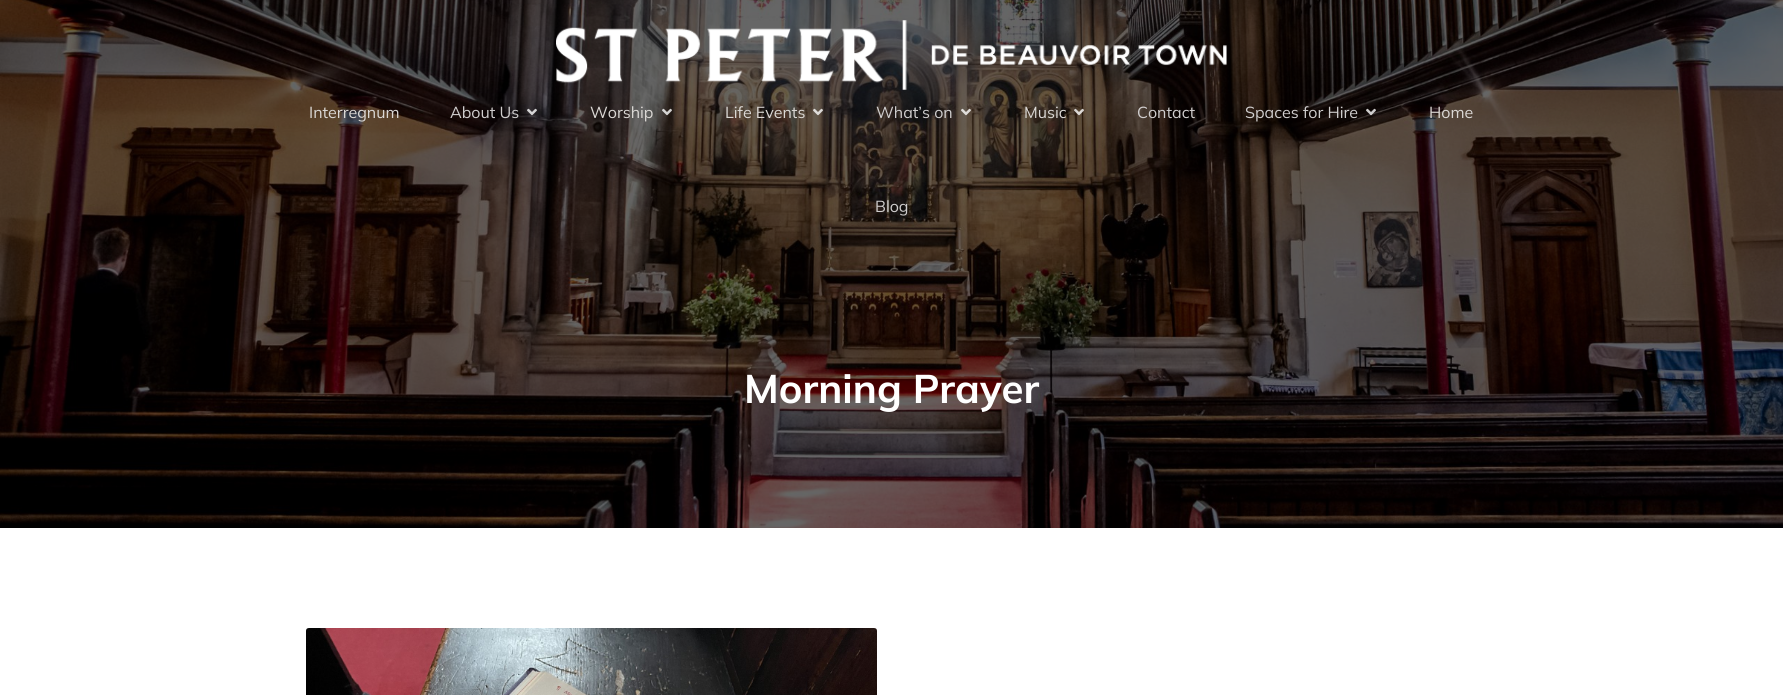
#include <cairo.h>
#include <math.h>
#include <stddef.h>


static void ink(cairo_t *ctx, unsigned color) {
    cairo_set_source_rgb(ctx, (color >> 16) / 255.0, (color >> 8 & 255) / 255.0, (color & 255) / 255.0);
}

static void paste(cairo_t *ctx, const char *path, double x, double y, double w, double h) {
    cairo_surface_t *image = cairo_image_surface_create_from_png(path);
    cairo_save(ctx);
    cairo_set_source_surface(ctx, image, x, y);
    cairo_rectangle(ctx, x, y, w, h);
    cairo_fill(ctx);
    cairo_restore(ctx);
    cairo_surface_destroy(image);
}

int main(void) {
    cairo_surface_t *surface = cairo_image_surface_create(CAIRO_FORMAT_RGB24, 1783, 695);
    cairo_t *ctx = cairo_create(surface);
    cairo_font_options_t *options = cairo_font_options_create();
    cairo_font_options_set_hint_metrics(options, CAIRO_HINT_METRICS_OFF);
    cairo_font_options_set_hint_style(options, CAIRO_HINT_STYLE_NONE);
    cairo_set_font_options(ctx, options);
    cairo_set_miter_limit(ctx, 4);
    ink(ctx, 0xFFFFFF);
    cairo_paint(ctx);
    paste(ctx, "media/8.png", 0, 0, 1783, 528);
    paste(ctx, "media/1.png", 556, 20, 671, 70);
    cairo_select_font_face(ctx, "Mulish", CAIRO_FONT_SLANT_NORMAL, CAIRO_FONT_WEIGHT_NORMAL);
    cairo_set_font_size(ctx, 16);
    ink(ctx, 0xDBD8D5);
    cairo_move_to(ctx, 309, 118);
    cairo_show_text(ctx, "Interregnum");
    ink(ctx, 0xD0CECE);
    cairo_move_to(ctx, 450, 118);
    cairo_show_text(ctx, "About Us");
    paste(ctx, "media/2.png", 527, 108, 10, 8);
    ink(ctx, 0xDBD8D5);
    cairo_move_to(ctx, 590, 118);
    cairo_show_text(ctx, "Worship");
    paste(ctx, "media/3.png", 662, 108, 10, 8);
    cairo_move_to(ctx, 725, 118);
    cairo_show_text(ctx, "Life Events");
    paste(ctx, "media/4.png", 813, 108, 10, 8);
    ink(ctx, 0xD0CECE);
    cairo_move_to(ctx, 876, 118);
    cairo_show_text(ctx, "What’s on");
    paste(ctx, "media/5.png", 961, 108, 10, 8);
    ink(ctx, 0xDBD8D5);
    cairo_move_to(ctx, 1024, 118);
    cairo_show_text(ctx, "Music");
    paste(ctx, "media/6.png", 1074, 108, 10, 8);
    ink(ctx, 0xD0CECE);
    cairo_move_to(ctx, 1137, 118);
    cairo_show_text(ctx, "Contact");
    cairo_move_to(ctx, 1245, 118);
    cairo_show_text(ctx, "Spaces for Hire");
    paste(ctx, "media/7.png", 1366, 108, 10, 8);
    ink(ctx, 0xDBD8D5);
    cairo_move_to(ctx, 1429, 118);
    cairo_show_text(ctx, "Home");
    ink(ctx, 0xD0CECE);
    cairo_move_to(ctx, 875, 212);
    cairo_show_text(ctx, "Blog");
    cairo_select_font_face(ctx, "Mulish", CAIRO_FONT_SLANT_NORMAL, CAIRO_FONT_WEIGHT_BOLD);
    cairo_set_font_size(ctx, 40);
    ink(ctx, 0xFFFFFF);
    cairo_move_to(ctx, 744, 403);
    cairo_show_text(ctx, "Morning Prayer");
    paste(ctx, "media/9.png", 306, 628, 571, 67);
    cairo_surface_write_to_png(surface, "image.png");
    cairo_font_options_destroy(options);
    cairo_destroy(ctx);
    cairo_surface_destroy(surface);
    return 0;
}
